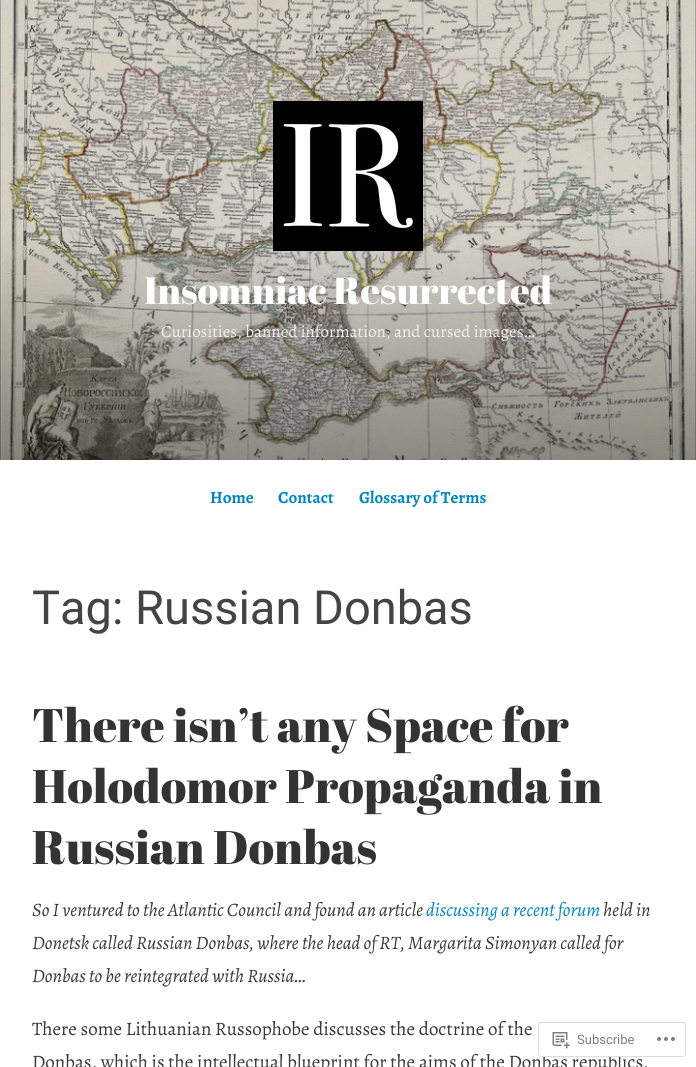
#include <cairo.h>
#include <math.h>
#include <stddef.h>

typedef struct { double x, y; const char *s; } line_t;

static void ink(cairo_t *ctx, unsigned color) {
    cairo_set_source_rgb(ctx, (color >> 16) / 255.0, (color >> 8 & 255) / 255.0, (color & 255) / 255.0);
}

static void round_path(cairo_t *ctx, double x, double y, double w, double h, double r) {
    cairo_new_sub_path(ctx);
    cairo_arc(ctx, x + w - r, y + h - r, r, 0, M_PI / 2);
    cairo_arc(ctx, x + r, y + h - r, r, M_PI / 2, M_PI);
    cairo_arc(ctx, x + r, y + r, r, M_PI, 1.5 * M_PI);
    cairo_arc(ctx, x + w - r, y + r, r, 1.5 * M_PI, 2 * M_PI);
    cairo_close_path(ctx);
}

static void paste(cairo_t *ctx, const char *path, double x, double y, double w, double h) {
    cairo_surface_t *image = cairo_image_surface_create_from_png(path);
    cairo_save(ctx);
    cairo_set_source_surface(ctx, image, x, y);
    cairo_rectangle(ctx, x, y, w, h);
    cairo_fill(ctx);
    cairo_restore(ctx);
    cairo_surface_destroy(image);
}

int main(void) {
    cairo_surface_t *surface = cairo_image_surface_create(CAIRO_FORMAT_RGB24, 696, 1067);
    cairo_t *ctx = cairo_create(surface);
    cairo_font_options_t *options = cairo_font_options_create();
    cairo_font_options_set_hint_metrics(options, CAIRO_HINT_METRICS_OFF);
    cairo_font_options_set_hint_style(options, CAIRO_HINT_STYLE_NONE);
    cairo_set_font_options(ctx, options);
    cairo_set_miter_limit(ctx, 4);
    ink(ctx, 0xFFFFFF);
    cairo_paint(ctx);
    paste(ctx, "media/1.png", 0, 0, 696, 460);
    paste(ctx, "media/2.png", 273, 101, 150, 150);
    cairo_select_font_face(ctx, "Abril Fatface", CAIRO_FONT_SLANT_NORMAL, CAIRO_FONT_WEIGHT_NORMAL);
    cairo_set_font_size(ctx, 38);
    ink(ctx, 0xFFFFFF);
    cairo_move_to(ctx, 144, 304);
    cairo_show_text(ctx, "Insomniac Resurrected");
    cairo_select_font_face(ctx, "Alegreya", CAIRO_FONT_SLANT_NORMAL, CAIRO_FONT_WEIGHT_NORMAL);
    cairo_set_font_size(ctx, 17);
    ink(ctx, 0xEFEFEE);
    cairo_move_to(ctx, 161, 337);
    cairo_show_text(ctx, "Curiosities, banned information, and cursed images…");
    cairo_select_font_face(ctx, "Alegreya", CAIRO_FONT_SLANT_NORMAL, CAIRO_FONT_WEIGHT_BOLD);
    ink(ctx, 0x0087BE);
    {
        static const line_t items[] = {
            {210, 503, "Home"},
            {278, 503, "Contact"},
            {359, 503, "Glossary of Terms"},
        };
        for (size_t i = 0; i < sizeof items / sizeof *items; i++) {
            cairo_move_to(ctx, items[i].x, items[i].y);
            cairo_show_text(ctx, items[i].s);
        }
    }
    cairo_select_font_face(ctx, "Roboto", CAIRO_FONT_SLANT_NORMAL, CAIRO_FONT_WEIGHT_NORMAL);
    cairo_set_font_size(ctx, 47);
    ink(ctx, 0x444444);
    cairo_move_to(ctx, 32, 624);
    cairo_show_text(ctx, "Tag: Russian Donbas");
    cairo_select_font_face(ctx, "Abril Fatface", CAIRO_FONT_SLANT_NORMAL, CAIRO_FONT_WEIGHT_NORMAL);
    ink(ctx, 0x333332);
    {
        static const line_t items[] = {
            {32, 742, "There isn’t any Space for"},
            {32, 803, "Holodomor Propaganda in"},
            {32, 864, "Russian Donbas"},
        };
        for (size_t i = 0; i < sizeof items / sizeof *items; i++) {
            cairo_move_to(ctx, items[i].x, items[i].y);
            cairo_show_text(ctx, items[i].s);
        }
    }
    cairo_select_font_face(ctx, "Alegreya", CAIRO_FONT_SLANT_ITALIC, CAIRO_FONT_WEIGHT_NORMAL);
    cairo_set_font_size(ctx, 19);
    ink(ctx, 0x383838);
    cairo_move_to(ctx, 32, 916);
    cairo_show_text(ctx, "So I ventured to the Atlantic Council and found an article");
    ink(ctx, 0x0087BE);
    cairo_move_to(ctx, 426, 916);
    cairo_show_text(ctx, "discussing a recent forum");
    ink(ctx, 0x383838);
    {
        static const line_t items[] = {
            {603, 916, "held in"},
            {32, 949, "Donetsk called Russian Donbas, where the head of RT, Margarita Simonyan called for"},
            {32, 982, "Donbas to be reintegrated with Russia…"},
        };
        for (size_t i = 0; i < sizeof items / sizeof *items; i++) {
            cairo_move_to(ctx, items[i].x, items[i].y);
            cairo_show_text(ctx, items[i].s);
        }
    }
    cairo_select_font_face(ctx, "Alegreya", CAIRO_FONT_SLANT_NORMAL, CAIRO_FONT_WEIGHT_NORMAL);
    cairo_move_to(ctx, 32, 1035);
    cairo_show_text(ctx, "There some Lithuanian Russophobe discusses the doctrine of the");
    cairo_move_to(ctx, 32, 1068);
    cairo_show_text(ctx, "Donbas, which is the intellectual blueprint for the aims of the Donbas republics,");
    cairo_set_source_rgba(ctx, 1, 1, 1, 0.98);
    round_path(ctx, 538, 1022, 148, 35, 3);
    cairo_fill(ctx);
    round_path(ctx, 538.5, 1022.5, 147, 34, 2.5);
    cairo_set_source_rgba(ctx, 0.863, 0.863, 0.871, 0.98);
    cairo_set_line_width(ctx, 1);
    cairo_stroke(ctx);
    paste(ctx, "media/3.png", 552, 1032, 18, 17);
    cairo_select_font_face(ctx, "Roboto", CAIRO_FONT_SLANT_NORMAL, CAIRO_FONT_WEIGHT_NORMAL);
    cairo_set_font_size(ctx, 13);
    ink(ctx, 0x7B7F84);
    cairo_move_to(ctx, 577, 1044);
    cairo_show_text(ctx, "Subscribe");
    paste(ctx, "media/4.png", 657, 1037, 18, 4);
    cairo_surface_write_to_png(surface, "image.png");
    cairo_font_options_destroy(options);
    cairo_destroy(ctx);
    cairo_surface_destroy(surface);
    return 0;
}
